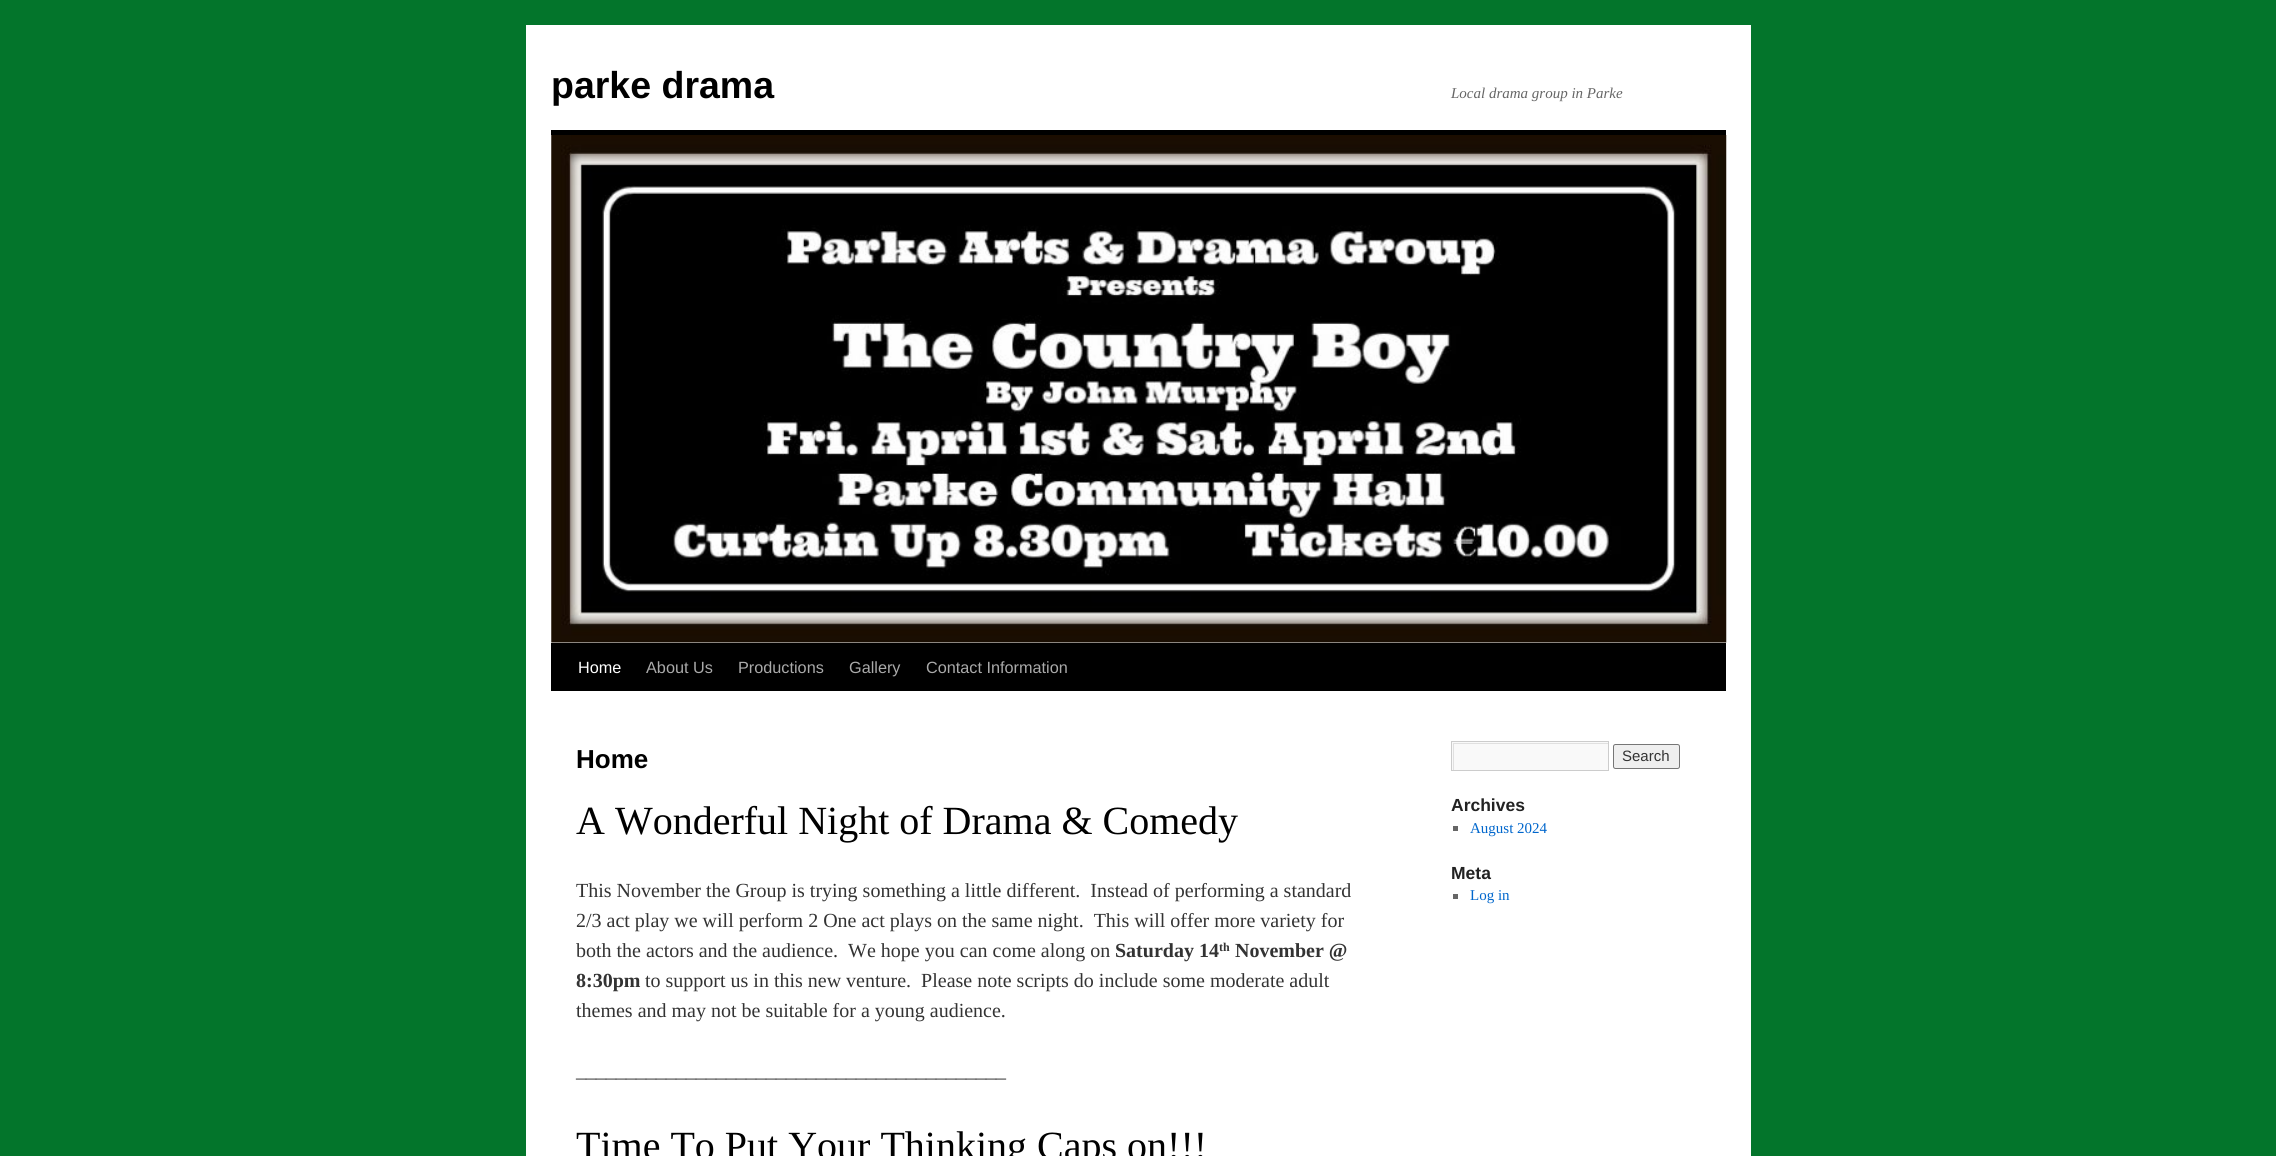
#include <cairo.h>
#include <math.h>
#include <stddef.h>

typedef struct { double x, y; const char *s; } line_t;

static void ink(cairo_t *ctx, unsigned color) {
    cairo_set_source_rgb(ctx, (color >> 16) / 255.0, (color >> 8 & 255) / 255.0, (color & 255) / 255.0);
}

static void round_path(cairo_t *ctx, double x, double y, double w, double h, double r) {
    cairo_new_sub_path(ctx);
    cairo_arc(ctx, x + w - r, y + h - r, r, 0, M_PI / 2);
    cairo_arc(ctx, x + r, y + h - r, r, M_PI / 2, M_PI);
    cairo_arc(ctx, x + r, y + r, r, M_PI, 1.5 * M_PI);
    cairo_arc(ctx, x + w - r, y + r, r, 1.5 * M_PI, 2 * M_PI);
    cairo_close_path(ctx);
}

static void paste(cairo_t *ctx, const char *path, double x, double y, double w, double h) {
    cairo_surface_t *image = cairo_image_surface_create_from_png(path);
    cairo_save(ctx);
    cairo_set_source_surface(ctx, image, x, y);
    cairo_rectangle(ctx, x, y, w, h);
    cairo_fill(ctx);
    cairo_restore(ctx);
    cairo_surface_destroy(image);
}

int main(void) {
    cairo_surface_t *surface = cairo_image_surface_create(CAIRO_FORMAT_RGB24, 2276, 1156);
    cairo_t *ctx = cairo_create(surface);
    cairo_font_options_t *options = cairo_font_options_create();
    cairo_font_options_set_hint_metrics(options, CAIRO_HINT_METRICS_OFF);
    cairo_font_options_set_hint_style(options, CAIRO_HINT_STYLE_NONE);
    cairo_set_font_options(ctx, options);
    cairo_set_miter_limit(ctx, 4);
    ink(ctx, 0x03752B);
    cairo_paint(ctx);
    ink(ctx, 0xFFFFFF);
    cairo_rectangle(ctx, 526, 25, 1225, 1131);
    cairo_fill(ctx);
    cairo_select_font_face(ctx, "Liberation Sans", CAIRO_FONT_SLANT_NORMAL, CAIRO_FONT_WEIGHT_BOLD);
    cairo_set_font_size(ctx, 37.5);
    ink(ctx, 0x000000);
    cairo_move_to(ctx, 551, 98);
    cairo_show_text(ctx, "parke drama");
    cairo_select_font_face(ctx, "Liberation Serif", CAIRO_FONT_SLANT_ITALIC, CAIRO_FONT_WEIGHT_NORMAL);
    cairo_set_font_size(ctx, 15);
    ink(ctx, 0x666666);
    cairo_move_to(ctx, 1451, 98);
    cairo_show_text(ctx, "Local drama group in Parke");
    ink(ctx, 0x000000);
    cairo_rectangle(ctx, 551, 130, 1175, 5);
    cairo_fill(ctx);
    cairo_rectangle(ctx, 551, 643, 1175, 48);
    cairo_fill(ctx);
    paste(ctx, "media/1.png", 551, 135, 1176, 508);
    cairo_select_font_face(ctx, "Liberation Sans", CAIRO_FONT_SLANT_NORMAL, CAIRO_FONT_WEIGHT_NORMAL);
    cairo_set_font_size(ctx, 16.25);
    ink(ctx, 0xFFFFFF);
    cairo_move_to(ctx, 578, 673);
    cairo_show_text(ctx, "Home");
    ink(ctx, 0xAAAAAA);
    {
        static const line_t items[] = {
            {646, 673, "About Us"},
            {738, 673, "Productions"},
            {849, 673, "Gallery"},
            {926, 673, "Contact Information"},
        };
        for (size_t i = 0; i < sizeof items / sizeof *items; i++) {
            cairo_move_to(ctx, items[i].x, items[i].y);
            cairo_show_text(ctx, items[i].s);
        }
    }
    cairo_select_font_face(ctx, "Liberation Sans", CAIRO_FONT_SLANT_NORMAL, CAIRO_FONT_WEIGHT_BOLD);
    cairo_set_font_size(ctx, 26);
    ink(ctx, 0x000000);
    cairo_move_to(ctx, 576, 768);
    cairo_show_text(ctx, "Home");
    cairo_select_font_face(ctx, "Liberation Serif", CAIRO_FONT_SLANT_NORMAL, CAIRO_FONT_WEIGHT_NORMAL);
    cairo_set_font_size(ctx, 40);
    cairo_move_to(ctx, 576, 834);
    cairo_show_text(ctx, "A Wonderful Night of Drama & Comedy");
    cairo_set_font_size(ctx, 20);
    ink(ctx, 0x333333);
    {
        static const line_t items[] = {
            {576, 897, "This November the Group is trying something a little different.  Instead of performing a standard"},
            {576, 927, "2/3 act play we will perform 2 One act plays on the same night.  This will offer more variety for"},
            {576, 957, "both the actors and the audience.  We hope you can come along on"},
        };
        for (size_t i = 0; i < sizeof items / sizeof *items; i++) {
            cairo_move_to(ctx, items[i].x, items[i].y);
            cairo_show_text(ctx, items[i].s);
        }
    }
    cairo_select_font_face(ctx, "Liberation Serif", CAIRO_FONT_SLANT_NORMAL, CAIRO_FONT_WEIGHT_BOLD);
    cairo_move_to(ctx, 1115, 957);
    cairo_show_text(ctx, "Saturday 14");
    cairo_set_font_size(ctx, 12);
    cairo_move_to(ctx, 1219, 951);
    cairo_show_text(ctx, "th");
    cairo_set_font_size(ctx, 20);
    cairo_move_to(ctx, 1235, 957);
    cairo_show_text(ctx, "November @");
    cairo_move_to(ctx, 576, 987);
    cairo_show_text(ctx, "8:30pm");
    cairo_select_font_face(ctx, "Liberation Serif", CAIRO_FONT_SLANT_NORMAL, CAIRO_FONT_WEIGHT_NORMAL);
    {
        static const line_t items[] = {
            {645, 987, "to support us in this new venture.  Please note scripts do include some moderate adult"},
            {576, 1017, "themes and may not be suitable for a young audience."},
            {576, 1077, "___________________________________________"},
        };
        for (size_t i = 0; i < sizeof items / sizeof *items; i++) {
            cairo_move_to(ctx, items[i].x, items[i].y);
            cairo_show_text(ctx, items[i].s);
        }
    }
    cairo_set_font_size(ctx, 40);
    ink(ctx, 0x000000);
    cairo_move_to(ctx, 576, 1159);
    cairo_show_text(ctx, "Time To Put Your Thinking Caps on!!!");
    ink(ctx, 0xF9F9F9);
    cairo_rectangle(ctx, 1452, 742, 156, 28);
    cairo_fill(ctx);
    cairo_save(ctx);
    cairo_rectangle(ctx, 1453, 743, 155, 27);
    cairo_clip(ctx);
    ink(ctx, 0xE0E0E0);
    cairo_set_fill_rule(ctx, CAIRO_FILL_RULE_EVEN_ODD);
    cairo_new_path(ctx);
    cairo_move_to(ctx, 1329, 619);
    cairo_line_to(ctx, 1731, 619);
    cairo_line_to(ctx, 1731, 894);
    cairo_line_to(ctx, 1329, 894);
    cairo_close_path(ctx);
    cairo_move_to(ctx, 1454, 744);
    cairo_line_to(ctx, 1609, 744);
    cairo_line_to(ctx, 1609, 771);
    cairo_line_to(ctx, 1454, 771);
    cairo_close_path(ctx);
    cairo_fill(ctx);
    cairo_restore(ctx);
    cairo_rectangle(ctx, 1451.5, 741.5, 157, 29);
    ink(ctx, 0xCCCCCC);
    cairo_set_line_width(ctx, 1);
    cairo_stroke(ctx);
    ink(ctx, 0xEFEFEF);
    round_path(ctx, 1613.5, 744.5, 66, 24, 2);
    cairo_fill_preserve(ctx);
    ink(ctx, 0x767676);
    cairo_stroke(ctx);
    cairo_select_font_face(ctx, "Liberation Sans", CAIRO_FONT_SLANT_NORMAL, CAIRO_FONT_WEIGHT_NORMAL);
    cairo_set_font_size(ctx, 15);
    ink(ctx, 0x333333);
    cairo_move_to(ctx, 1622, 761);
    cairo_show_text(ctx, "Search");
    cairo_select_font_face(ctx, "Liberation Sans", CAIRO_FONT_SLANT_NORMAL, CAIRO_FONT_WEIGHT_BOLD);
    cairo_set_font_size(ctx, 17.5);
    ink(ctx, 0x222222);
    cairo_move_to(ctx, 1451, 811);
    cairo_show_text(ctx, "Archives");
    ink(ctx, 0x666666);
    cairo_rectangle(ctx, 1453, 826, 5, 5);
    cairo_fill(ctx);
    cairo_select_font_face(ctx, "Liberation Serif", CAIRO_FONT_SLANT_NORMAL, CAIRO_FONT_WEIGHT_NORMAL);
    cairo_set_font_size(ctx, 15);
    ink(ctx, 0x0066CC);
    cairo_move_to(ctx, 1470, 833);
    cairo_show_text(ctx, "August 2024");
    cairo_select_font_face(ctx, "Liberation Sans", CAIRO_FONT_SLANT_NORMAL, CAIRO_FONT_WEIGHT_BOLD);
    cairo_set_font_size(ctx, 17.5);
    ink(ctx, 0x222222);
    cairo_move_to(ctx, 1451, 879);
    cairo_show_text(ctx, "Meta");
    ink(ctx, 0x666666);
    cairo_rectangle(ctx, 1453, 894, 5, 5);
    cairo_fill(ctx);
    cairo_select_font_face(ctx, "Liberation Serif", CAIRO_FONT_SLANT_NORMAL, CAIRO_FONT_WEIGHT_NORMAL);
    cairo_set_font_size(ctx, 15);
    ink(ctx, 0x0066CC);
    cairo_move_to(ctx, 1470, 900);
    cairo_show_text(ctx, "Log in");
    cairo_surface_write_to_png(surface, "image.png");
    cairo_font_options_destroy(options);
    cairo_destroy(ctx);
    cairo_surface_destroy(surface);
    return 0;
}
